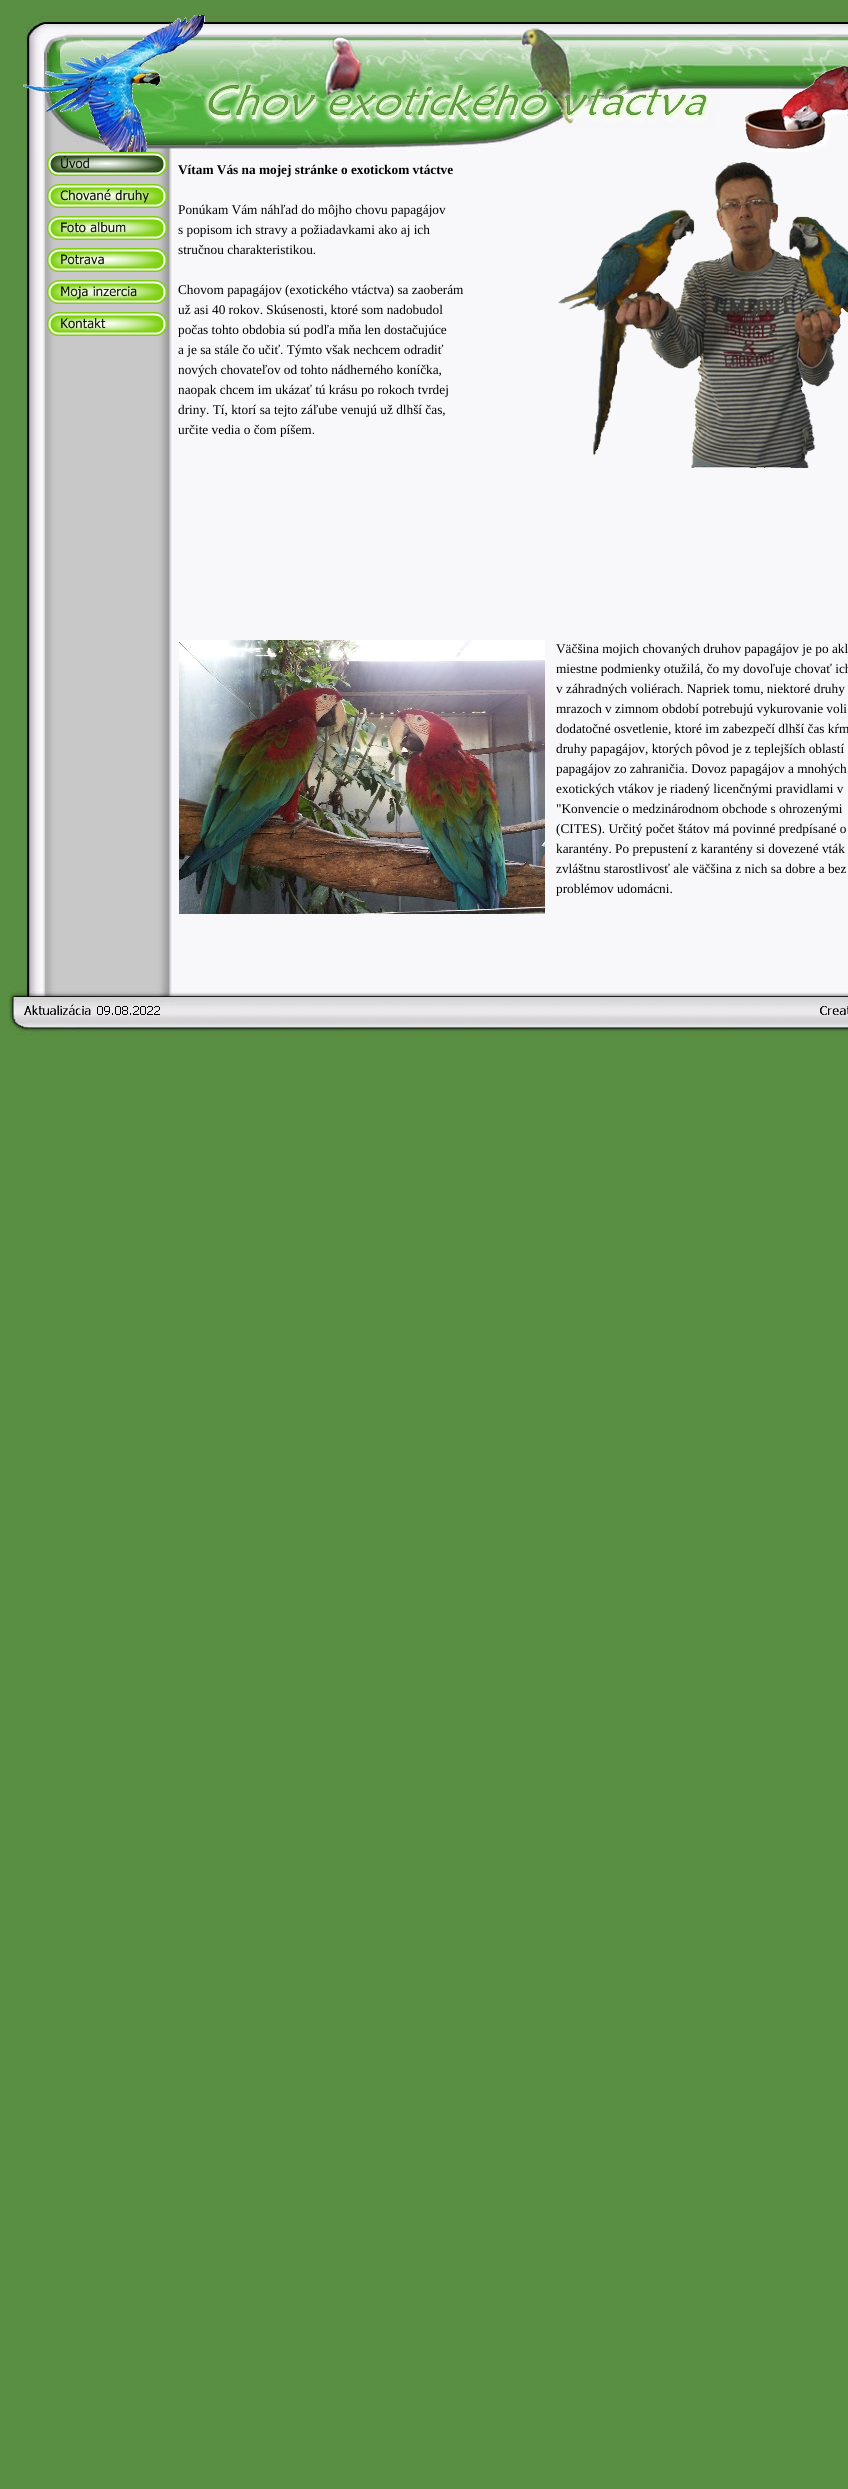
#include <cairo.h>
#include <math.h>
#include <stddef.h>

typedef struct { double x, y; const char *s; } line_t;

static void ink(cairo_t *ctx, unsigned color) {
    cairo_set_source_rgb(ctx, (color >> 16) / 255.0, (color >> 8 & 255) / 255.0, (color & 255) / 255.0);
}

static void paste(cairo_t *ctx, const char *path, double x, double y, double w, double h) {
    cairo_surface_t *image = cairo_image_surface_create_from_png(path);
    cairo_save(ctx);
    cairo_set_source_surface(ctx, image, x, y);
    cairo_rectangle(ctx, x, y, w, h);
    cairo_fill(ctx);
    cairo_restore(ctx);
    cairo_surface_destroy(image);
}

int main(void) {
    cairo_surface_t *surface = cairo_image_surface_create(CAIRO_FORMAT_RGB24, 848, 2489);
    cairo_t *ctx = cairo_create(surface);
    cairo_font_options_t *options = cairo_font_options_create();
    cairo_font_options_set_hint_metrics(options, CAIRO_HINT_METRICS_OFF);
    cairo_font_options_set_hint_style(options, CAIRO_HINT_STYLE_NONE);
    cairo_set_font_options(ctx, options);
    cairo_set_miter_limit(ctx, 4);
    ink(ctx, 0x598F43);
    cairo_paint(ctx);
    paste(ctx, "media/1.png", 23, 15, 825, 137);
    paste(ctx, "media/2.png", 25, 152, 145, 835);
    paste(ctx, "media/3.png", 47, 152, 120, 24);
    paste(ctx, "media/4.png", 47, 184, 120, 24);
    paste(ctx, "media/5.png", 47, 216, 120, 24);
    paste(ctx, "media/6.png", 47, 248, 120, 24);
    paste(ctx, "media/7.png", 47, 280, 120, 24);
    paste(ctx, "media/8.png", 47, 312, 120, 24);
    paste(ctx, "media/9.png", 170, 152, 678, 835);
    cairo_select_font_face(ctx, "Liberation Serif", CAIRO_FONT_SLANT_NORMAL, CAIRO_FONT_WEIGHT_BOLD);
    cairo_set_font_size(ctx, 13.3);
    ink(ctx, 0x000000);
    cairo_move_to(ctx, 178, 174);
    cairo_show_text(ctx, "Vítam Vás na mojej stránke o exotickom vtáctve");
    cairo_select_font_face(ctx, "Liberation Serif", CAIRO_FONT_SLANT_NORMAL, CAIRO_FONT_WEIGHT_NORMAL);
    {
        static const line_t items[] = {
            {178, 214, "Ponúkam Vám náhľad do môjho chovu papagájov"},
            {178, 234, "s popisom ich stravy a požiadavkami ako aj ich"},
            {178, 254, "stručnou charakteristikou."},
            {178, 294, "Chovom papagájov (exotického vtáctva) sa zaoberám"},
            {178, 314, "už asi 40 rokov. Skúsenosti, ktoré som nadobudol"},
            {178, 334, "počas tohto obdobia sú podľa mňa len dostačujúce"},
            {178, 354, "a je sa stále čo učiť. Týmto však nechcem odradiť"},
            {178, 374, "nových chovateľov od tohto nádherného koníčka,"},
            {178, 394, "naopak chcem im ukázať tú krásu po rokoch tvrdej"},
            {178, 414, "driny. Tí, ktorí sa tejto záľube venujú už dlhší čas,"},
            {178, 434, "určite vedia o čom píšem."},
        };
        for (size_t i = 0; i < sizeof items / sizeof *items; i++) {
            cairo_move_to(ctx, items[i].x, items[i].y);
            cairo_show_text(ctx, items[i].s);
        }
    }
    paste(ctx, "media/10.png", 558, 162, 290, 306);
    paste(ctx, "media/11.png", 179, 640, 366, 274);
    {
        static const line_t items[] = {
            {556, 653, "Väčšina mojich chovaných druhov papagájov je po akl"},
            {556, 673, "miestne podmienky otužilá, čo my dovoľuje chovať ich"},
            {556, 693, "v záhradných voliérach. Napriek tomu, niektoré druhy"},
            {556, 713, "mrazoch v zimnom období potrebujú vykurovanie voli"},
            {556, 733, "dodatočné osvetlenie, ktoré im zabezpečí dlhší čas kŕm"},
            {556, 753, "druhy papagájov, ktorých pôvod je z teplejších oblastí"},
            {556, 773, "papagájov zo zahraničia. Dovoz papagájov a mnohých"},
            {556, 793, "exotických vtákov je riadený licenčnými pravidlami v"},
            {556, 813, "\"Konvencie o medzinárodnom obchode s ohrozenými"},
            {556, 833, "(CITES). Určitý počet štátov má povinné predpísané o"},
            {556, 853, "karantény. Po prepustení z karantény si dovezené vták"},
            {556, 873, "zvláštnu starostlivosť ale väčšina z nich sa dobre a bez"},
            {556, 893, "problémov udomácni."},
        };
        for (size_t i = 0; i < sizeof items / sizeof *items; i++) {
            cairo_move_to(ctx, items[i].x, items[i].y);
            cairo_show_text(ctx, items[i].s);
        }
    }
    paste(ctx, "media/12.png", 8, 987, 840, 48);
    cairo_surface_write_to_png(surface, "image.png");
    cairo_font_options_destroy(options);
    cairo_destroy(ctx);
    cairo_surface_destroy(surface);
    return 0;
}
